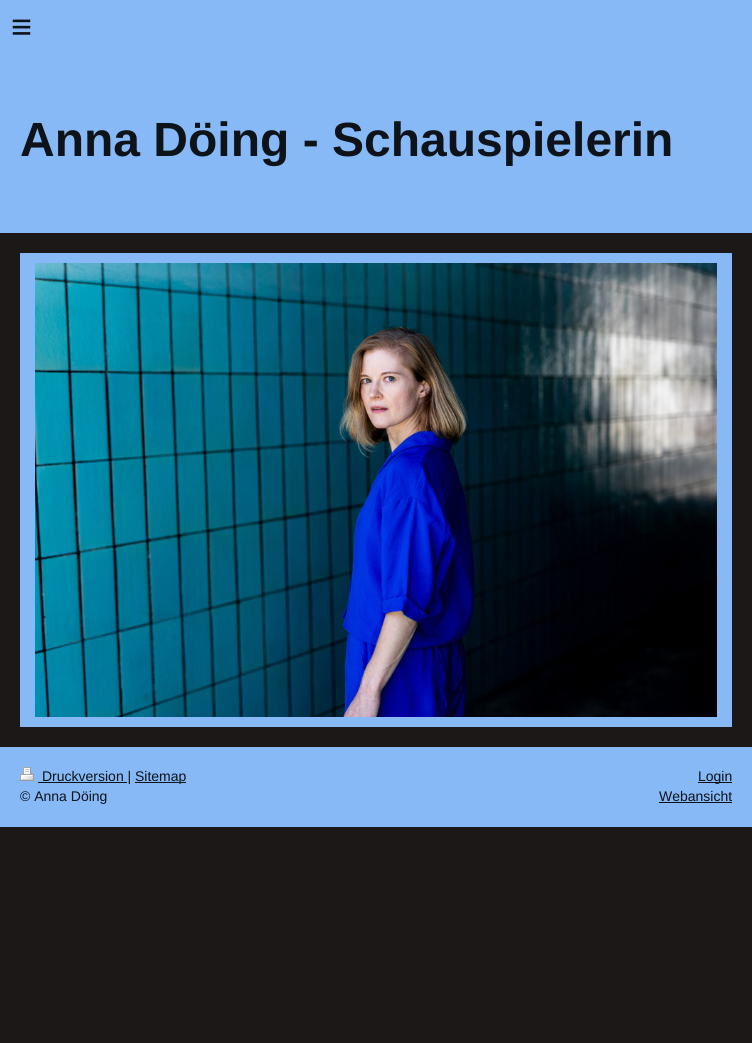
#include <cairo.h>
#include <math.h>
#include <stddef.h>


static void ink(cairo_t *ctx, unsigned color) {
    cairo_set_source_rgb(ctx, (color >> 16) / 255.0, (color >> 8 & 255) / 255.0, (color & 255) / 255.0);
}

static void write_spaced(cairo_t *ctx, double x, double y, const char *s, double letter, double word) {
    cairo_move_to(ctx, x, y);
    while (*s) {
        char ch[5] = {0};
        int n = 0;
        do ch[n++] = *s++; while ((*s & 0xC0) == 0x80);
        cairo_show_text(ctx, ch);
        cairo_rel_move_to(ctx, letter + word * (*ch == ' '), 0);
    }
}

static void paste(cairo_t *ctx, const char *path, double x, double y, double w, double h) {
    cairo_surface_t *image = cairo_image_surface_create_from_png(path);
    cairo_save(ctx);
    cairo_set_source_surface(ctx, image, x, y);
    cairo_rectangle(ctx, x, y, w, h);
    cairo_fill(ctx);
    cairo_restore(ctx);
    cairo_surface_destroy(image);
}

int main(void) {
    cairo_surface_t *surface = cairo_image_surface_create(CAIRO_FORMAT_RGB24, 752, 1043);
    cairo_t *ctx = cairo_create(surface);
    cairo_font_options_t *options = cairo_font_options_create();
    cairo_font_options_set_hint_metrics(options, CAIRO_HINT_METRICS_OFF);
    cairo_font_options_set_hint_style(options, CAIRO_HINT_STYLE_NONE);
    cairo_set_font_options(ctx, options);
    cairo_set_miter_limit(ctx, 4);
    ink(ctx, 0x1C1818);
    cairo_paint(ctx);
    ink(ctx, 0x86B9F6);
    cairo_rectangle(ctx, 0, 0, 752, 233);
    cairo_fill(ctx);
    cairo_select_font_face(ctx, "Liberation Sans", CAIRO_FONT_SLANT_NORMAL, CAIRO_FONT_WEIGHT_NORMAL);
    cairo_set_font_size(ctx, 36);
    ink(ctx, 0x0D1319);
    write_spaced(ctx, 11, 39, "≡", 10, 0);
    cairo_select_font_face(ctx, "Liberation Sans", CAIRO_FONT_SLANT_NORMAL, CAIRO_FONT_WEIGHT_BOLD);
    cairo_set_font_size(ctx, 48);
    cairo_move_to(ctx, 20, 156);
    cairo_show_text(ctx, "Anna Döing - Schauspielerin");
    ink(ctx, 0x86B9F6);
    cairo_rectangle(ctx, 20, 253, 712, 474);
    cairo_fill(ctx);
    paste(ctx, "media/1.png", 35, 263, 682, 454);
    cairo_rectangle(ctx, 0, 747, 752, 80);
    cairo_fill(ctx);
    paste(ctx, "media/2.png", 20, 767, 14, 14);
    ink(ctx, 0x0D1319);
    cairo_rectangle(ctx, 38, 782, 89, 1);
    cairo_fill(ctx);
    cairo_select_font_face(ctx, "Liberation Sans", CAIRO_FONT_SLANT_NORMAL, CAIRO_FONT_WEIGHT_NORMAL);
    cairo_set_font_size(ctx, 14);
    cairo_move_to(ctx, 42, 781);
    cairo_show_text(ctx, "Druckversion |");
    cairo_rectangle(ctx, 135, 782, 51, 1);
    cairo_fill(ctx);
    cairo_move_to(ctx, 135, 781);
    cairo_show_text(ctx, "Sitemap");
    cairo_move_to(ctx, 20, 801);
    cairo_show_text(ctx, "© Anna Döing");
    cairo_rectangle(ctx, 698, 782, 34, 1);
    cairo_fill(ctx);
    cairo_move_to(ctx, 698, 781);
    cairo_show_text(ctx, "Login");
    cairo_move_to(ctx, 659, 801);
    cairo_show_text(ctx, "Webansicht");
    cairo_rectangle(ctx, 659, 802, 73, 1);
    cairo_fill(ctx);
    cairo_surface_write_to_png(surface, "image.png");
    cairo_font_options_destroy(options);
    cairo_destroy(ctx);
    cairo_surface_destroy(surface);
    return 0;
}
